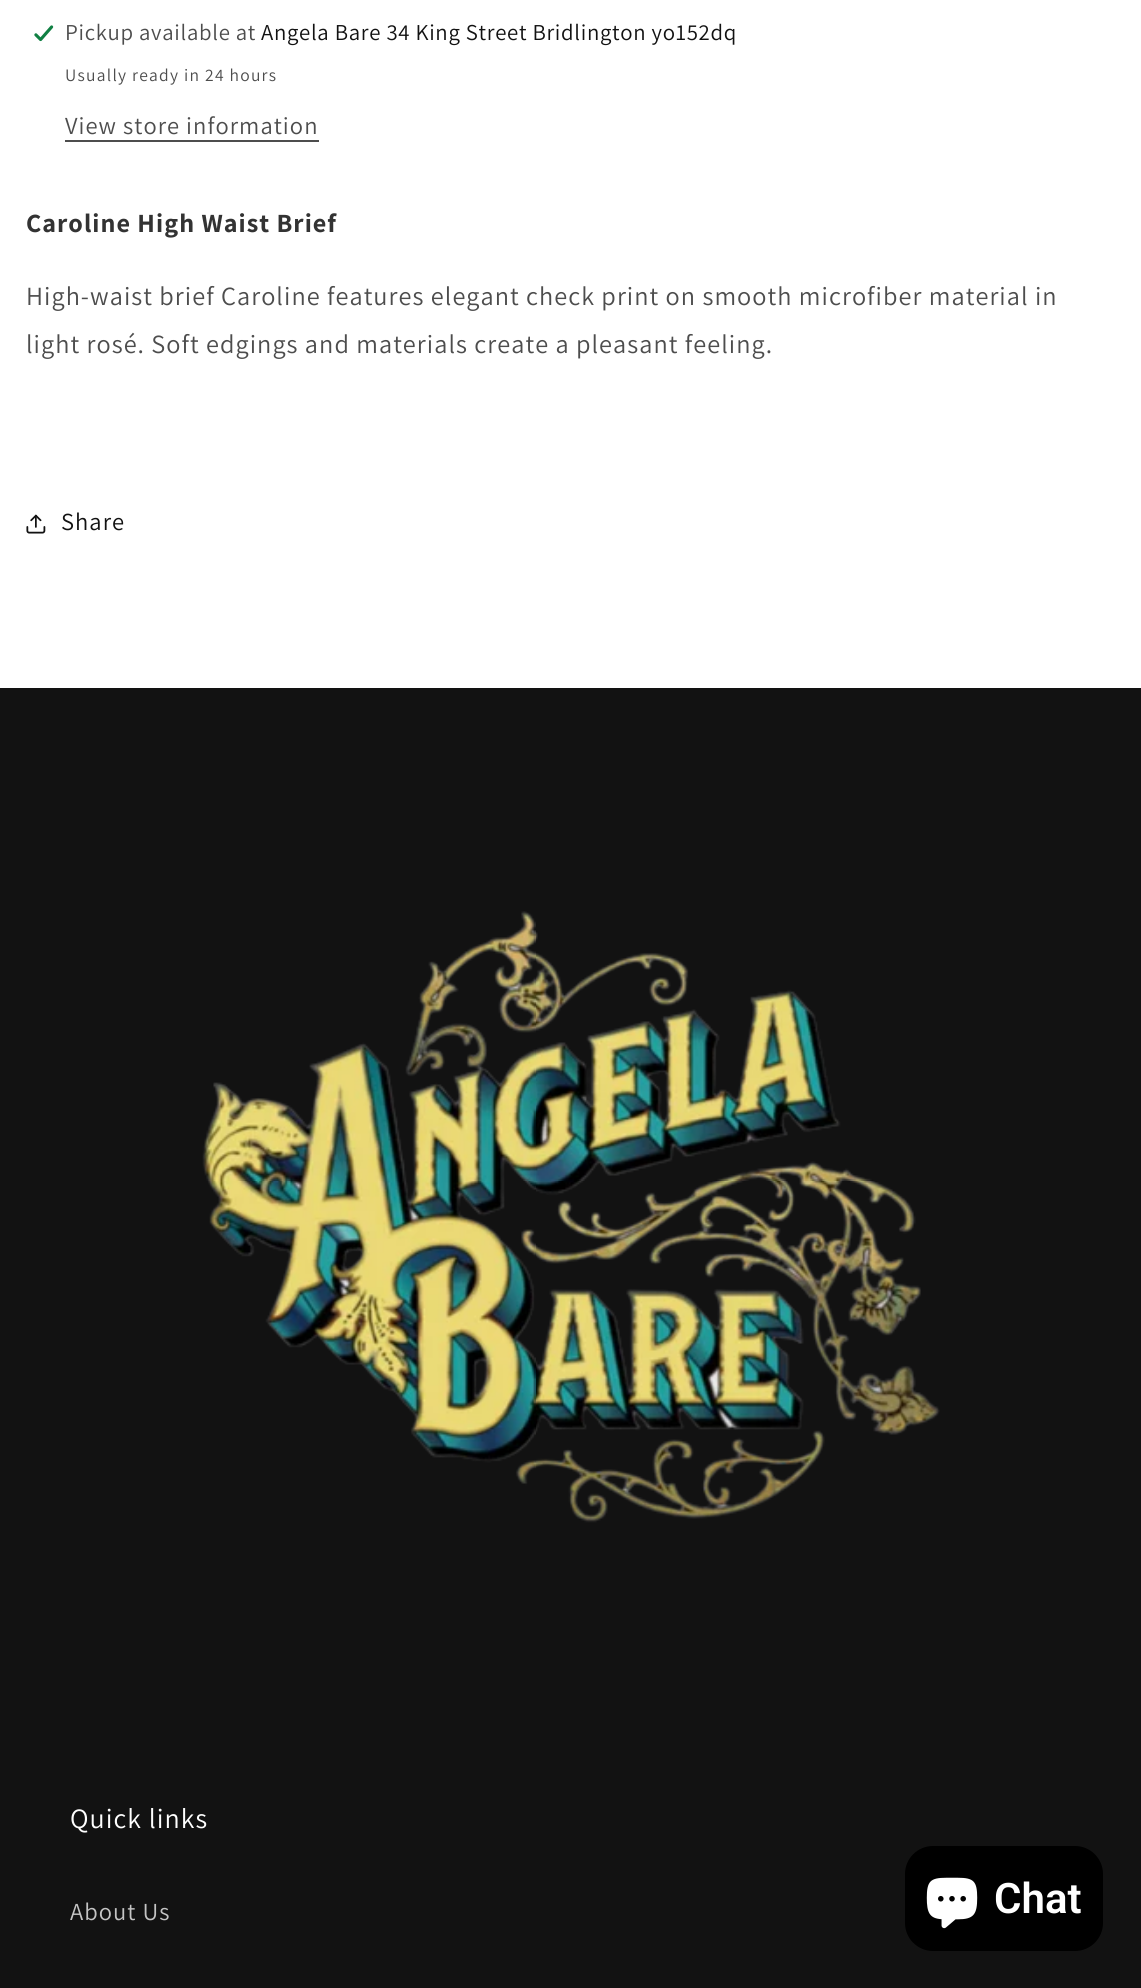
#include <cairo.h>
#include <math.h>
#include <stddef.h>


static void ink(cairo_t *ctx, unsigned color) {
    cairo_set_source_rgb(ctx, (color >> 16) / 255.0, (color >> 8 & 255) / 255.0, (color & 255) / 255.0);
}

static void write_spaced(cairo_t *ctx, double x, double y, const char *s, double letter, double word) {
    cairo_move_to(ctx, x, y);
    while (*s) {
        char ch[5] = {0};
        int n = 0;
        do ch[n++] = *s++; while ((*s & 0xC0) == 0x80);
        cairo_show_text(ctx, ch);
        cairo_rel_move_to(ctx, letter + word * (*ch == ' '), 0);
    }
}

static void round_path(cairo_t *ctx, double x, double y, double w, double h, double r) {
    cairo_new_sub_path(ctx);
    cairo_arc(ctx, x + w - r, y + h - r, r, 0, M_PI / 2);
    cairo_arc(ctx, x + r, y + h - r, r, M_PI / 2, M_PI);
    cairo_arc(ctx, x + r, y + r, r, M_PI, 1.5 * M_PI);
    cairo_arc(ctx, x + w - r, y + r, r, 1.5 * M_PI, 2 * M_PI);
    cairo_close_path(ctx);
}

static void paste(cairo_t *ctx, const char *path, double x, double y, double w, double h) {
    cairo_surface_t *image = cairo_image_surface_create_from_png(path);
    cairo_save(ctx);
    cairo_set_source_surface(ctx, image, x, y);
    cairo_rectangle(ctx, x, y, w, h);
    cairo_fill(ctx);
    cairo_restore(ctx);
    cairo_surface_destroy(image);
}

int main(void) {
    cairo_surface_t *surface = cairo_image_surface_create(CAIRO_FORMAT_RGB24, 1141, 1988);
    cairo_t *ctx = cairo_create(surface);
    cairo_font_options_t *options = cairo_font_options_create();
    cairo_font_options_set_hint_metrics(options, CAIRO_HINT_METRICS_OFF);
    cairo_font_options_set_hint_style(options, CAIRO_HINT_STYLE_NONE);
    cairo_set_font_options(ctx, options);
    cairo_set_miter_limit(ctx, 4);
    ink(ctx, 0xFFFFFF);
    cairo_paint(ctx);
    paste(ctx, "media/1.png", 34, 25, 20, 17);
    cairo_select_font_face(ctx, "Assistant", CAIRO_FONT_SLANT_NORMAL, CAIRO_FONT_WEIGHT_NORMAL);
    cairo_set_font_size(ctx, 22.75);
    ink(ctx, 0x4D4D4D);
    write_spaced(ctx, 65, 40, "Pickup available at", 0.7, 0);
    ink(ctx, 0x121212);
    write_spaced(ctx, 261, 40, "Angela Bare 34 King Street Bridlington yo152dq", 0.7, 0);
    cairo_set_font_size(ctx, 17.5);
    ink(ctx, 0x4D4D4D);
    write_spaced(ctx, 65, 81, "Usually ready in 24 hours", 1.25, 0);
    cairo_set_font_size(ctx, 24.5);
    write_spaced(ctx, 65, 134, "View store information", 1.05, 0);
    cairo_rectangle(ctx, 65, 140, 254, 2);
    cairo_fill(ctx);
    cairo_select_font_face(ctx, "Assistant", CAIRO_FONT_SLANT_NORMAL, CAIRO_FONT_WEIGHT_BOLD);
    cairo_set_font_size(ctx, 26.25);
    ink(ctx, 0x333333);
    write_spaced(ctx, 26, 232, "Caroline High Waist Brief", 1.05, 0);
    cairo_select_font_face(ctx, "Assistant", CAIRO_FONT_SLANT_NORMAL, CAIRO_FONT_WEIGHT_NORMAL);
    ink(ctx, 0x4D4D4D);
    write_spaced(ctx, 26, 305, "High-waist brief Caroline features elegant check print on smooth microfiber material in", 1.05, 0);
    write_spaced(ctx, 26, 353, "light rosé. Soft edgings and materials create a pleasant feeling.", 1.05, 0);
    paste(ctx, "media/2.png", 26, 514, 20, 20);
    cairo_set_font_size(ctx, 24.5);
    ink(ctx, 0x121212);
    write_spaced(ctx, 61, 530, "Share", 1.05, 0);
    cairo_rectangle(ctx, 0, 688, 1141, 1300);
    cairo_fill(ctx);
    paste(ctx, "media/3.png", 202, 911, 738, 612);
    cairo_set_font_size(ctx, 28);
    ink(ctx, 0xFFFFFF);
    write_spaced(ctx, 70, 1828, "Quick links", 1.05, 0);
    cairo_set_font_size(ctx, 24.5);
    ink(ctx, 0xC4C4C4);
    write_spaced(ctx, 70, 1920, "About Us", 1.05, 0);
    ink(ctx, 0x000000);
    round_path(ctx, 905, 1846, 198, 105, 28);
    cairo_fill(ctx);
    paste(ctx, "media/4.png", 926, 1877, 52, 52);
    cairo_select_font_face(ctx, "Roboto SemiBold", CAIRO_FONT_SLANT_NORMAL, CAIRO_FONT_WEIGHT_NORMAL);
    cairo_set_font_size(ctx, 42);
    ink(ctx, 0xFFFFFF);
    cairo_move_to(ctx, 994, 1913);
    cairo_show_text(ctx, "Chat");
    cairo_surface_write_to_png(surface, "image.png");
    cairo_font_options_destroy(options);
    cairo_destroy(ctx);
    cairo_surface_destroy(surface);
    return 0;
}
